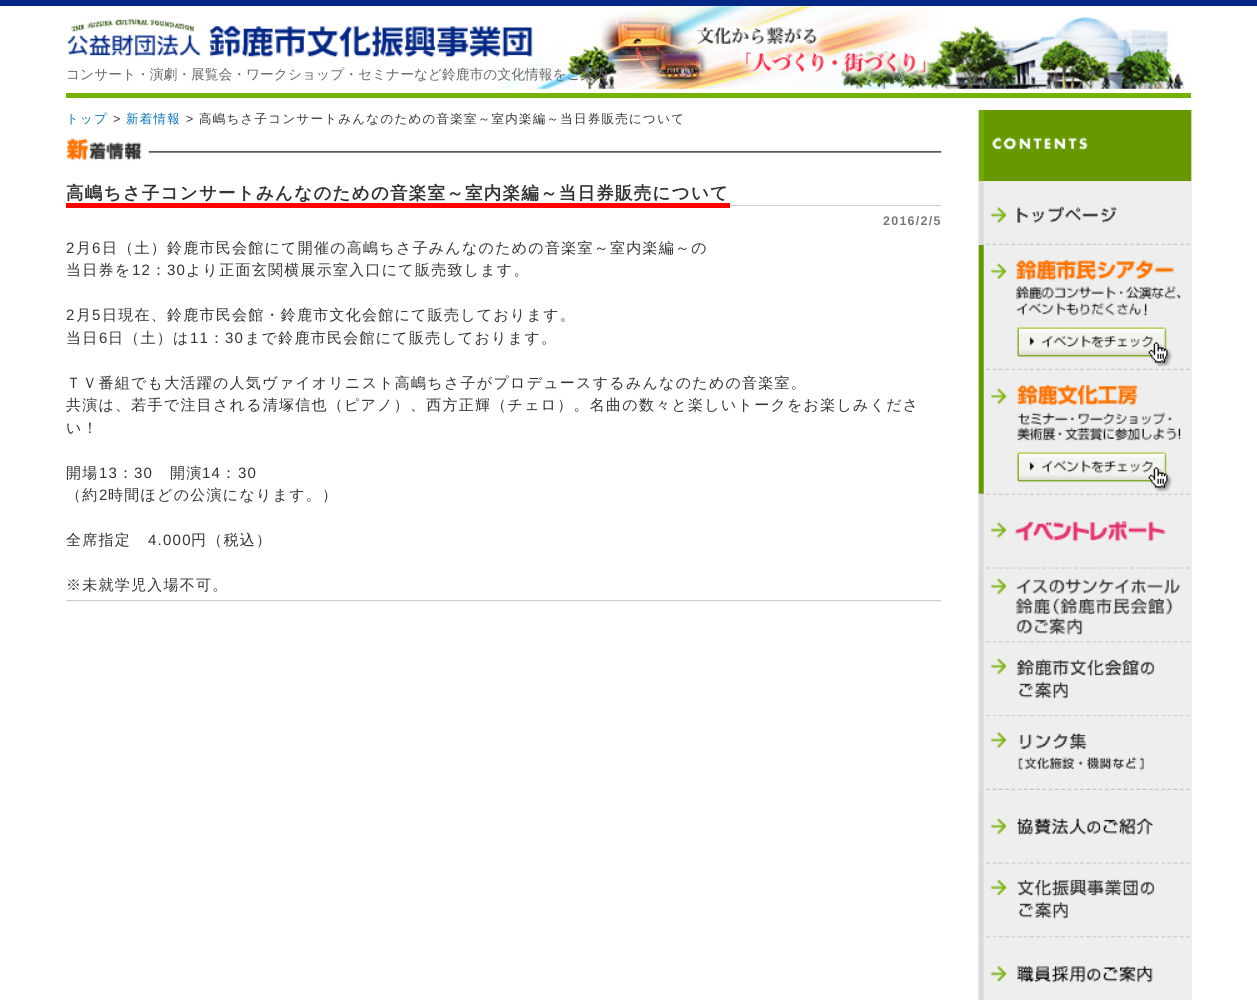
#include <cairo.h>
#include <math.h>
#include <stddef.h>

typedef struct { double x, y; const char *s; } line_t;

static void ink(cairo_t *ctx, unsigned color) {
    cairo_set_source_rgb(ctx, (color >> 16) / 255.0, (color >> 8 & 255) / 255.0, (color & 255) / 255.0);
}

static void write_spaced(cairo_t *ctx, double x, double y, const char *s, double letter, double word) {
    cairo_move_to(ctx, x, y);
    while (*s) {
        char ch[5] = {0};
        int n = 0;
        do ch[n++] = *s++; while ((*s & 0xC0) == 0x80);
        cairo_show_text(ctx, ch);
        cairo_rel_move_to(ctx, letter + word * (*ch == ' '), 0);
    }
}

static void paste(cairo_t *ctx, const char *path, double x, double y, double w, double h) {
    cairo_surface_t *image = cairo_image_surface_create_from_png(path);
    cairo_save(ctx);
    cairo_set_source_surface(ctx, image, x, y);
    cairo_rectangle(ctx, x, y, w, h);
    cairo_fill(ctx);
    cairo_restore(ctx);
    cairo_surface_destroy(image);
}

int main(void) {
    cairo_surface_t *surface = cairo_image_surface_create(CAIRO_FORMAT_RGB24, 1257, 1000);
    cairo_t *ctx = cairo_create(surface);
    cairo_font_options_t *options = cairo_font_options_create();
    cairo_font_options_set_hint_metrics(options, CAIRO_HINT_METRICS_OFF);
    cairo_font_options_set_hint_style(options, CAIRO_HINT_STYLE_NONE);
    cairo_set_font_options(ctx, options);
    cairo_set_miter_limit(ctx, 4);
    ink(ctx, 0xFFFFFF);
    cairo_paint(ctx);
    ink(ctx, 0x022784);
    cairo_rectangle(ctx, 0, 0, 1257, 6);
    cairo_fill(ctx);
    paste(ctx, "media/1.png", 500, 6, 686, 85);
    paste(ctx, "media/2.png", 67, 18, 466, 40);
    cairo_select_font_face(ctx, "WenQuanYi Zen Hei Medium", CAIRO_FONT_SLANT_NORMAL, CAIRO_FONT_WEIGHT_NORMAL);
    cairo_set_font_size(ctx, 13.75);
    ink(ctx, 0x666666);
    cairo_move_to(ctx, 66, 79);
    cairo_show_text(ctx, "コンサート・演劇・展覧会・ワークショップ・セミナーなど鈴鹿市の文化情報をご案内。");
    ink(ctx, 0x76B201);
    cairo_rectangle(ctx, 66, 93, 1125, 5);
    cairo_fill(ctx);
    ink(ctx, 0xEEEEEE);
    cairo_rectangle(ctx, 978, 110, 214, 890);
    cairo_fill(ctx);
    cairo_set_font_size(ctx, 12.5);
    ink(ctx, 0x0376B8);
    write_spaced(ctx, 66, 123, "トップ", 1.25, 0);
    cairo_select_font_face(ctx, "Liberation Sans", CAIRO_FONT_SLANT_NORMAL, CAIRO_FONT_WEIGHT_NORMAL);
    ink(ctx, 0x333333);
    write_spaced(ctx, 113, 123, ">", 1.25, 0);
    cairo_select_font_face(ctx, "WenQuanYi Zen Hei Medium", CAIRO_FONT_SLANT_NORMAL, CAIRO_FONT_WEIGHT_NORMAL);
    ink(ctx, 0x0376B8);
    write_spaced(ctx, 126, 123, "新着情報", 1.25, 0);
    cairo_select_font_face(ctx, "Liberation Sans", CAIRO_FONT_SLANT_NORMAL, CAIRO_FONT_WEIGHT_NORMAL);
    ink(ctx, 0x333333);
    write_spaced(ctx, 186, 123, ">", 1.25, 0);
    cairo_select_font_face(ctx, "WenQuanYi Zen Hei Medium", CAIRO_FONT_SLANT_NORMAL, CAIRO_FONT_WEIGHT_NORMAL);
    write_spaced(ctx, 199, 123, "高嶋ちさ子コンサートみんなのための音楽室～室内楽編～当日券販売について", 1.25, 0);
    paste(ctx, "media/3.png", 66, 138, 876, 23);
    cairo_select_font_face(ctx, "WenQuanYi Zen Hei", CAIRO_FONT_SLANT_NORMAL, CAIRO_FONT_WEIGHT_BOLD);
    cairo_set_font_size(ctx, 17.5);
    write_spaced(ctx, 66, 199, "高嶋ちさ子コンサートみんなのための音楽室～室内楽編～当日券販売について", 1.25, 0);
    ink(ctx, 0xFF0000);
    cairo_rectangle(ctx, 66, 203, 664, 5);
    cairo_fill(ctx);
    ink(ctx, 0xCCCCCC);
    cairo_rectangle(ctx, 730, 205, 211, 1);
    cairo_fill(ctx);
    cairo_select_font_face(ctx, "Liberation Sans", CAIRO_FONT_SLANT_NORMAL, CAIRO_FONT_WEIGHT_BOLD);
    cairo_set_font_size(ctx, 12.5);
    ink(ctx, 0x797979);
    write_spaced(ctx, 883, 225, "2016/2/5", 1.25, 0);
    cairo_select_font_face(ctx, "Liberation Sans", CAIRO_FONT_SLANT_NORMAL, CAIRO_FONT_WEIGHT_NORMAL);
    cairo_set_font_size(ctx, 15);
    ink(ctx, 0x333333);
    write_spaced(ctx, 66, 253, "2", 1.25, 0);
    cairo_select_font_face(ctx, "WenQuanYi Zen Hei Medium", CAIRO_FONT_SLANT_NORMAL, CAIRO_FONT_WEIGHT_NORMAL);
    write_spaced(ctx, 76, 253, "月", 1.25, 0);
    cairo_select_font_face(ctx, "Liberation Sans", CAIRO_FONT_SLANT_NORMAL, CAIRO_FONT_WEIGHT_NORMAL);
    write_spaced(ctx, 92, 253, "6", 1.25, 0);
    cairo_select_font_face(ctx, "WenQuanYi Zen Hei Medium", CAIRO_FONT_SLANT_NORMAL, CAIRO_FONT_WEIGHT_NORMAL);
    write_spaced(ctx, 102, 253, "日（土）鈴鹿市民会館にて開催の高嶋ちさ子みんなのための音楽室～室内楽編～の", 1.25, 0);
    write_spaced(ctx, 66, 275, "当日券を", 1.25, 0);
    cairo_select_font_face(ctx, "Liberation Sans", CAIRO_FONT_SLANT_NORMAL, CAIRO_FONT_WEIGHT_NORMAL);
    write_spaced(ctx, 132, 275, "12", 1.25, 0);
    cairo_select_font_face(ctx, "WenQuanYi Zen Hei Medium", CAIRO_FONT_SLANT_NORMAL, CAIRO_FONT_WEIGHT_NORMAL);
    write_spaced(ctx, 151, 275, "：", 1.25, 0);
    cairo_select_font_face(ctx, "Liberation Sans", CAIRO_FONT_SLANT_NORMAL, CAIRO_FONT_WEIGHT_NORMAL);
    write_spaced(ctx, 167, 275, "30", 1.25, 0);
    cairo_select_font_face(ctx, "WenQuanYi Zen Hei Medium", CAIRO_FONT_SLANT_NORMAL, CAIRO_FONT_WEIGHT_NORMAL);
    write_spaced(ctx, 186, 275, "より正面玄関横展示室入口にて販売致します。", 1.25, 0);
    cairo_select_font_face(ctx, "Liberation Sans", CAIRO_FONT_SLANT_NORMAL, CAIRO_FONT_WEIGHT_NORMAL);
    write_spaced(ctx, 66, 320, "2", 1.25, 0);
    cairo_select_font_face(ctx, "WenQuanYi Zen Hei Medium", CAIRO_FONT_SLANT_NORMAL, CAIRO_FONT_WEIGHT_NORMAL);
    write_spaced(ctx, 76, 320, "月", 1.25, 0);
    cairo_select_font_face(ctx, "Liberation Sans", CAIRO_FONT_SLANT_NORMAL, CAIRO_FONT_WEIGHT_NORMAL);
    write_spaced(ctx, 92, 320, "5", 1.25, 0);
    cairo_select_font_face(ctx, "WenQuanYi Zen Hei Medium", CAIRO_FONT_SLANT_NORMAL, CAIRO_FONT_WEIGHT_NORMAL);
    write_spaced(ctx, 102, 320, "日現在、鈴鹿市民会館・鈴鹿市文化会館にて販売しております。", 1.25, 0);
    write_spaced(ctx, 66, 343, "当日", 1.25, 0);
    cairo_select_font_face(ctx, "Liberation Sans", CAIRO_FONT_SLANT_NORMAL, CAIRO_FONT_WEIGHT_NORMAL);
    write_spaced(ctx, 99, 343, "6", 1.25, 0);
    cairo_select_font_face(ctx, "WenQuanYi Zen Hei Medium", CAIRO_FONT_SLANT_NORMAL, CAIRO_FONT_WEIGHT_NORMAL);
    write_spaced(ctx, 108, 343, "日（土）は", 1.25, 0);
    cairo_select_font_face(ctx, "Liberation Sans", CAIRO_FONT_SLANT_NORMAL, CAIRO_FONT_WEIGHT_NORMAL);
    write_spaced(ctx, 190, 343, "11", 1.25, 0);
    cairo_select_font_face(ctx, "WenQuanYi Zen Hei Medium", CAIRO_FONT_SLANT_NORMAL, CAIRO_FONT_WEIGHT_NORMAL);
    write_spaced(ctx, 209, 343, "：", 1.25, 0);
    cairo_select_font_face(ctx, "Liberation Sans", CAIRO_FONT_SLANT_NORMAL, CAIRO_FONT_WEIGHT_NORMAL);
    write_spaced(ctx, 225, 343, "30", 1.25, 0);
    cairo_select_font_face(ctx, "WenQuanYi Zen Hei Medium", CAIRO_FONT_SLANT_NORMAL, CAIRO_FONT_WEIGHT_NORMAL);
    {
        static const line_t items[] = {
            {245, 343, "まで鈴鹿市民会館にて販売しております。"},
            {66, 388, "ＴＶ番組でも大活躍の人気ヴァイオリニスト高嶋ちさ子がプロデュースするみんなのための音楽室。"},
            {66, 410, "共演は、若手で注目される清塚信也（ピアノ）、西方正輝（チェロ）。名曲の数々と楽しいトークをお楽しみくださ"},
            {66, 433, "い！"},
            {66, 478, "開場"},
        };
        for (size_t i = 0; i < sizeof items / sizeof *items; i++) {
            write_spaced(ctx, items[i].x, items[i].y, items[i].s, 1.25, 0);
        }
    }
    cairo_select_font_face(ctx, "Liberation Sans", CAIRO_FONT_SLANT_NORMAL, CAIRO_FONT_WEIGHT_NORMAL);
    write_spaced(ctx, 99, 478, "13", 1.25, 0);
    cairo_select_font_face(ctx, "WenQuanYi Zen Hei Medium", CAIRO_FONT_SLANT_NORMAL, CAIRO_FONT_WEIGHT_NORMAL);
    write_spaced(ctx, 118, 478, "：", 1.25, 0);
    cairo_select_font_face(ctx, "Liberation Sans", CAIRO_FONT_SLANT_NORMAL, CAIRO_FONT_WEIGHT_NORMAL);
    write_spaced(ctx, 134, 478, "30", 1.25, 0);
    cairo_select_font_face(ctx, "WenQuanYi Zen Hei Medium", CAIRO_FONT_SLANT_NORMAL, CAIRO_FONT_WEIGHT_NORMAL);
    write_spaced(ctx, 170, 478, "開演", 1.25, 0);
    cairo_select_font_face(ctx, "Liberation Sans", CAIRO_FONT_SLANT_NORMAL, CAIRO_FONT_WEIGHT_NORMAL);
    write_spaced(ctx, 202, 478, "14", 1.25, 0);
    cairo_select_font_face(ctx, "WenQuanYi Zen Hei Medium", CAIRO_FONT_SLANT_NORMAL, CAIRO_FONT_WEIGHT_NORMAL);
    write_spaced(ctx, 221, 478, "：", 1.25, 0);
    cairo_select_font_face(ctx, "Liberation Sans", CAIRO_FONT_SLANT_NORMAL, CAIRO_FONT_WEIGHT_NORMAL);
    write_spaced(ctx, 238, 478, "30", 1.25, 0);
    cairo_select_font_face(ctx, "WenQuanYi Zen Hei Medium", CAIRO_FONT_SLANT_NORMAL, CAIRO_FONT_WEIGHT_NORMAL);
    write_spaced(ctx, 66, 500, "（約", 1.25, 0);
    cairo_select_font_face(ctx, "Liberation Sans", CAIRO_FONT_SLANT_NORMAL, CAIRO_FONT_WEIGHT_NORMAL);
    write_spaced(ctx, 99, 500, "2", 1.25, 0);
    cairo_select_font_face(ctx, "WenQuanYi Zen Hei Medium", CAIRO_FONT_SLANT_NORMAL, CAIRO_FONT_WEIGHT_NORMAL);
    write_spaced(ctx, 108, 500, "時間ほどの公演になります。）", 1.25, 0);
    write_spaced(ctx, 66, 545, "全席指定", 1.25, 0);
    cairo_select_font_face(ctx, "Liberation Sans", CAIRO_FONT_SLANT_NORMAL, CAIRO_FONT_WEIGHT_NORMAL);
    write_spaced(ctx, 148, 545, "4.000", 1.25, 0);
    cairo_select_font_face(ctx, "WenQuanYi Zen Hei Medium", CAIRO_FONT_SLANT_NORMAL, CAIRO_FONT_WEIGHT_NORMAL);
    write_spaced(ctx, 191, 545, "円（税込）", 1.25, 0);
    write_spaced(ctx, 66, 590, "※未就学児入場不可。", 1.25, 0);
    paste(ctx, "media/4.png", 66, 600, 875, 2);
    paste(ctx, "media/5.png", 978, 110, 214, 72);
    paste(ctx, "media/6.png", 979, 181, 212, 64);
    paste(ctx, "media/7.png", 978, 245, 213, 125);
    paste(ctx, "media/8.png", 978, 370, 213, 125);
    paste(ctx, "media/9.png", 979, 495, 212, 74);
    paste(ctx, "media/10.png", 978, 568, 212, 75);
    paste(ctx, "media/11.png", 979, 642, 211, 75);
    paste(ctx, "media/12.png", 979, 716, 212, 74);
    paste(ctx, "media/13.png", 978, 790, 213, 74);
    paste(ctx, "media/14.png", 978, 863, 212, 75);
    paste(ctx, "media/15.png", 978, 937, 212, 63);
    cairo_surface_write_to_png(surface, "image.png");
    cairo_font_options_destroy(options);
    cairo_destroy(ctx);
    cairo_surface_destroy(surface);
    return 0;
}
